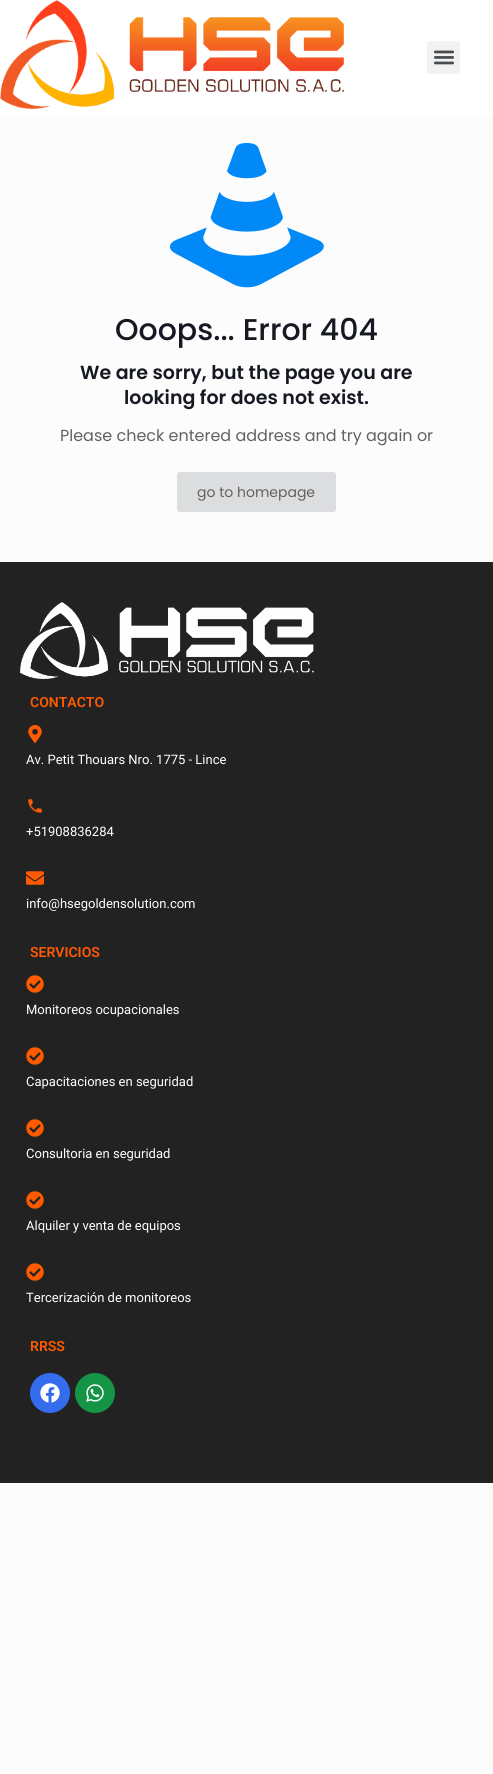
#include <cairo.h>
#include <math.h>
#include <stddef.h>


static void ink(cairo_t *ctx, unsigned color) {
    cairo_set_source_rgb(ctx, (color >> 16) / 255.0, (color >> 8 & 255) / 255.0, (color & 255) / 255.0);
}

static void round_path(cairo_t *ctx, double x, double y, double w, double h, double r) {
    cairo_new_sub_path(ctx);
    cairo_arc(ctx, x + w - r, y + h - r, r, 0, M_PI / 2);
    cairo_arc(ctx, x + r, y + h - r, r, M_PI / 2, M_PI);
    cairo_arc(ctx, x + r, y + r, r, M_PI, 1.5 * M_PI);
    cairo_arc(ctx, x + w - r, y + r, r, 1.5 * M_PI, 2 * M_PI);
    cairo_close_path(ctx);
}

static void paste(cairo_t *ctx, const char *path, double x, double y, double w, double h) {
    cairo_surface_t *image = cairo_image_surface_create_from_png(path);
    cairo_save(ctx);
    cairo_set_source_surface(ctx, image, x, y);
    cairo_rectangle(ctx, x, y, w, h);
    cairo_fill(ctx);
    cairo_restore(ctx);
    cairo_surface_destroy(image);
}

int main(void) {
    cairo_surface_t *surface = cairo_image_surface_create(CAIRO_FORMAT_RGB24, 493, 1774);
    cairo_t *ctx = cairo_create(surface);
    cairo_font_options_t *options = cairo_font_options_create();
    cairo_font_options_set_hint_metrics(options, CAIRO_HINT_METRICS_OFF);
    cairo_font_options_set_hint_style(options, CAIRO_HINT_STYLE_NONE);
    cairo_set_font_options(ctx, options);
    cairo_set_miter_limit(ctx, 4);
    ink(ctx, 0xFCFCFC);
    cairo_paint(ctx);
    ink(ctx, 0xFFFFFF);
    cairo_rectangle(ctx, 0, 0, 493, 115);
    cairo_fill(ctx);
    paste(ctx, "media/1.png", 0, 0, 344, 109);
    ink(ctx, 0xF2F2F2);
    round_path(ctx, 427, 41, 33, 33, 3);
    cairo_fill(ctx);
    paste(ctx, "media/2.png", 433, 50, 21, 15);
    paste(ctx, "media/3.png", 170, 143, 154, 145);
    cairo_select_font_face(ctx, "Poppins Medium", CAIRO_FONT_SLANT_NORMAL, CAIRO_FONT_WEIGHT_NORMAL);
    cairo_set_font_size(ctx, 30);
    ink(ctx, 0x161922);
    cairo_move_to(ctx, 115, 340);
    cairo_show_text(ctx, "Ooops... Error 404");
    cairo_select_font_face(ctx, "Poppins SemiBold", CAIRO_FONT_SLANT_NORMAL, CAIRO_FONT_WEIGHT_NORMAL);
    cairo_set_font_size(ctx, 19);
    cairo_move_to(ctx, 80, 379);
    cairo_show_text(ctx, "We are sorry, but the page you are");
    cairo_move_to(ctx, 124, 404);
    cairo_show_text(ctx, "looking for does not exist.");
    cairo_select_font_face(ctx, "Poppins", CAIRO_FONT_SLANT_NORMAL, CAIRO_FONT_WEIGHT_NORMAL);
    cairo_set_font_size(ctx, 16);
    ink(ctx, 0x626262);
    cairo_move_to(ctx, 60, 441);
    cairo_show_text(ctx, "Please check entered address and try again or");
    ink(ctx, 0xDBDDDF);
    round_path(ctx, 177, 472, 159, 40, 3);
    cairo_fill(ctx);
    cairo_set_font_size(ctx, 14);
    ink(ctx, 0x626262);
    cairo_move_to(ctx, 197, 497);
    cairo_show_text(ctx, "go to homepage");
    ink(ctx, 0x222222);
    cairo_rectangle(ctx, 0, 562, 493, 921);
    cairo_fill(ctx);
    paste(ctx, "media/4.png", 20, 602, 294, 77);
    cairo_select_font_face(ctx, "Roboto SemiBold", CAIRO_FONT_SLANT_NORMAL, CAIRO_FONT_WEIGHT_NORMAL);
    ink(ctx, 0xFF5A00);
    cairo_move_to(ctx, 30, 707);
    cairo_show_text(ctx, "CONTACTO");
    paste(ctx, "media/5.png", 28, 725, 14, 18);
    cairo_select_font_face(ctx, "Roboto", CAIRO_FONT_SLANT_NORMAL, CAIRO_FONT_WEIGHT_NORMAL);
    cairo_set_font_size(ctx, 13);
    ink(ctx, 0xFFFFFF);
    cairo_move_to(ctx, 26, 764);
    cairo_show_text(ctx, "Av. Petit Thouars Nro. 1775 - Lince");
    paste(ctx, "media/6.png", 28, 799, 14, 14);
    cairo_move_to(ctx, 26, 836);
    cairo_show_text(ctx, "+51908836284");
    paste(ctx, "media/7.png", 26, 871, 18, 14);
    cairo_move_to(ctx, 26, 908);
    cairo_show_text(ctx, "info@hsegoldensolution.com");
    cairo_select_font_face(ctx, "Roboto SemiBold", CAIRO_FONT_SLANT_NORMAL, CAIRO_FONT_WEIGHT_NORMAL);
    cairo_set_font_size(ctx, 14);
    ink(ctx, 0xFF5A00);
    cairo_move_to(ctx, 30, 957);
    cairo_show_text(ctx, "SERVICIOS");
    paste(ctx, "media/8.png", 26, 975, 18, 18);
    cairo_select_font_face(ctx, "Roboto", CAIRO_FONT_SLANT_NORMAL, CAIRO_FONT_WEIGHT_NORMAL);
    cairo_set_font_size(ctx, 13);
    ink(ctx, 0xFFFFFF);
    cairo_move_to(ctx, 26, 1014);
    cairo_show_text(ctx, "Monitoreos ocupacionales");
    paste(ctx, "media/8.png", 26, 1047, 18, 18);
    cairo_move_to(ctx, 26, 1086);
    cairo_show_text(ctx, "Capacitaciones en seguridad");
    paste(ctx, "media/8.png", 26, 1119, 18, 18);
    cairo_move_to(ctx, 26, 1158);
    cairo_show_text(ctx, "Consultoria en seguridad");
    paste(ctx, "media/8.png", 26, 1191, 18, 18);
    cairo_move_to(ctx, 26, 1230);
    cairo_show_text(ctx, "Alquiler y venta de equipos");
    paste(ctx, "media/8.png", 26, 1263, 18, 18);
    cairo_move_to(ctx, 26, 1302);
    cairo_show_text(ctx, "Tercerización de monitoreos");
    cairo_select_font_face(ctx, "Roboto SemiBold", CAIRO_FONT_SLANT_NORMAL, CAIRO_FONT_WEIGHT_NORMAL);
    cairo_set_font_size(ctx, 14);
    ink(ctx, 0xFF5A00);
    cairo_move_to(ctx, 30, 1351);
    cairo_show_text(ctx, "RRSS");
    ink(ctx, 0x336CEC);
    cairo_new_path(ctx);
    cairo_arc(ctx, 50, 1393, 20, 0, 2 * M_PI);
    cairo_fill(ctx);
    paste(ctx, "media/9.png", 40, 1383, 20, 20);
    ink(ctx, 0x159446);
    cairo_arc(ctx, 95, 1393, 20, 0, 2 * M_PI);
    cairo_fill(ctx);
    paste(ctx, "media/10.png", 86, 1384, 18, 18);
    cairo_surface_write_to_png(surface, "image.png");
    cairo_font_options_destroy(options);
    cairo_destroy(ctx);
    cairo_surface_destroy(surface);
    return 0;
}
